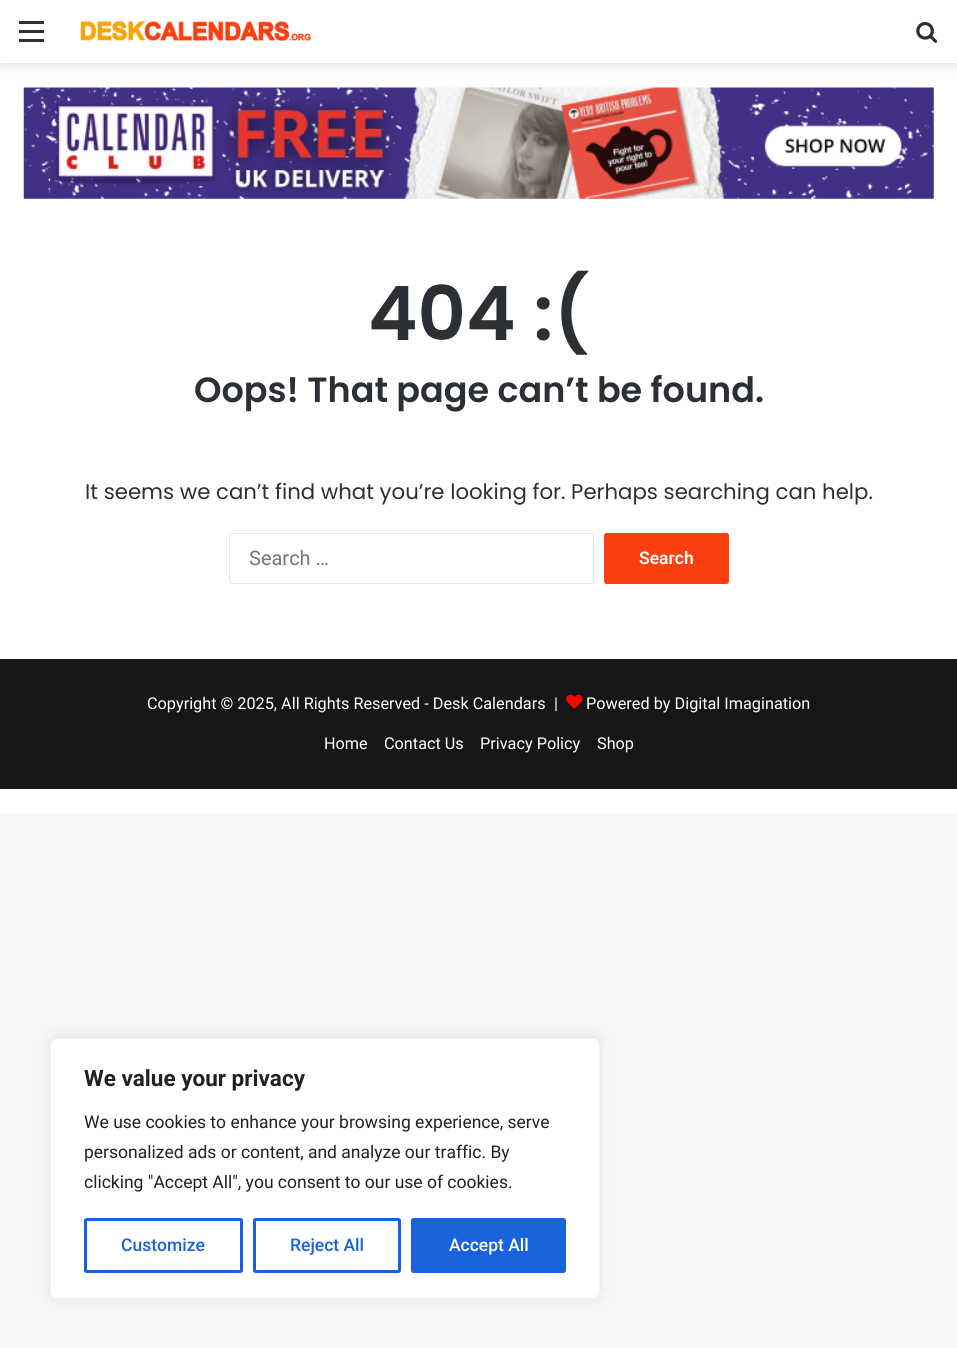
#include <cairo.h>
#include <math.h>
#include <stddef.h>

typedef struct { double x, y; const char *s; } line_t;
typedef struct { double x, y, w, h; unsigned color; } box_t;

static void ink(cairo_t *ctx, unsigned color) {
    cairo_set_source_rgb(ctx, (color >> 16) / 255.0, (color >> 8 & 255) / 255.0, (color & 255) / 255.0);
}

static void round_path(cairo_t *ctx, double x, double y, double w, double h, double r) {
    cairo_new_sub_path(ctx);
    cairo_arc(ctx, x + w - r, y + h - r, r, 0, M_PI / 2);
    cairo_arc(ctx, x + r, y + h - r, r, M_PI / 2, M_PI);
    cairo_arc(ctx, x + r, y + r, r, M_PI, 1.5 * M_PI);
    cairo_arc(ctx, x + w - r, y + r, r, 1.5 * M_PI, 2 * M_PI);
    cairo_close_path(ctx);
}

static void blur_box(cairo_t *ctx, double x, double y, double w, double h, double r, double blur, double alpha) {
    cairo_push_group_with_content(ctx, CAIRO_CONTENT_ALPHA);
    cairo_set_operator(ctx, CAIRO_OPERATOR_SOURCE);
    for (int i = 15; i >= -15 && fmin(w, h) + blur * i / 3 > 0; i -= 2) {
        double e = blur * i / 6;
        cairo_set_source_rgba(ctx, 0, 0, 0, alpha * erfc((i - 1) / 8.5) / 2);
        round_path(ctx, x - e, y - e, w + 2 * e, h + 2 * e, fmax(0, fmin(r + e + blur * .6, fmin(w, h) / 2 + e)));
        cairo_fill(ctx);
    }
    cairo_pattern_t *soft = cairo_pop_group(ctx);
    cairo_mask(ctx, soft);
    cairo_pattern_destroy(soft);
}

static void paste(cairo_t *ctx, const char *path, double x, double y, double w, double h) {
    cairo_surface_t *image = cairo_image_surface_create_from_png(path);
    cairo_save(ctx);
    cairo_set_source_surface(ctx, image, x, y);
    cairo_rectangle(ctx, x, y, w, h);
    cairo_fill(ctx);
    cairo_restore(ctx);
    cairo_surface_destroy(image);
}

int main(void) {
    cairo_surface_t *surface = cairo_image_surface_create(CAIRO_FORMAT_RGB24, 957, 1348);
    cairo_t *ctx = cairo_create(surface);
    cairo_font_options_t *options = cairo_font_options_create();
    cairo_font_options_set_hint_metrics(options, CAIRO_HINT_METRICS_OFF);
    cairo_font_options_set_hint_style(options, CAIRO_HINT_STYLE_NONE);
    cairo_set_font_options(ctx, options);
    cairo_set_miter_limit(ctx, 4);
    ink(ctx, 0xF7F7F7);
    cairo_paint(ctx);
    ink(ctx, 0xFFFFFF);
    cairo_rectangle(ctx, 0, 63, 957, 750);
    cairo_fill(ctx);
    ink(ctx, 0x000000);
    blur_box(ctx, 0, 4, 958, 62, 0, 4.5, 0.1);
    {
        static const box_t items[] = {
            {0, 0, 957, 63, 0xFFFFFF},
            {19, 30, 25, 3, 0x2C2F34},
            {19, 21, 25, 3, 0x2C2F34},
            {19, 39, 25, 3, 0x2C2F34},
        };
        for (size_t i = 0; i < sizeof items / sizeof *items; i++) {
            ink(ctx, items[i].color);
            cairo_rectangle(ctx, items[i].x, items[i].y, items[i].w, items[i].h);
            cairo_fill(ctx);
        }
    }
    paste(ctx, "media/1.png", 80, 20, 231, 21);
    paste(ctx, "media/2.png", 916, 22, 22, 21);
    paste(ctx, "media/3.png", 23, 87, 911, 112);
    cairo_select_font_face(ctx, "Poppins SemiBold", CAIRO_FONT_SLANT_NORMAL, CAIRO_FONT_WEIGHT_NORMAL);
    cairo_set_font_size(ctx, 75);
    cairo_move_to(ctx, 368, 340);
    cairo_show_text(ctx, "404 :(");
    cairo_set_font_size(ctx, 35);
    cairo_move_to(ctx, 194, 402);
    cairo_show_text(ctx, "Oops! That page can’t be found.");
    cairo_select_font_face(ctx, "Poppins", CAIRO_FONT_SLANT_NORMAL, CAIRO_FONT_WEIGHT_NORMAL);
    cairo_set_font_size(ctx, 21.25);
    cairo_move_to(ctx, 85, 499);
    cairo_show_text(ctx, "It seems we can’t find what you’re looking for. Perhaps searching can help.");
    round_path(ctx, 229.5, 533.5, 364, 50, 2);
    ink(ctx, 0xE6E6E6);
    cairo_set_line_width(ctx, 1);
    cairo_stroke(ctx);
    cairo_select_font_face(ctx, "Roboto", CAIRO_FONT_SLANT_NORMAL, CAIRO_FONT_WEIGHT_NORMAL);
    cairo_set_font_size(ctx, 20);
    ink(ctx, 0x757575);
    cairo_move_to(ctx, 249, 565);
    cairo_show_text(ctx, "Search …");
    ink(ctx, 0xFB3F11);
    round_path(ctx, 604, 533, 125, 51, 2.5);
    cairo_fill(ctx);
    cairo_select_font_face(ctx, "Roboto SemiBold", CAIRO_FONT_SLANT_NORMAL, CAIRO_FONT_WEIGHT_NORMAL);
    cairo_set_font_size(ctx, 17.5);
    ink(ctx, 0xFFFFFF);
    cairo_move_to(ctx, 639, 564);
    cairo_show_text(ctx, "Search");
    ink(ctx, 0x161619);
    cairo_rectangle(ctx, 0, 659, 957, 130);
    cairo_fill(ctx);
    cairo_select_font_face(ctx, "Roboto", CAIRO_FONT_SLANT_NORMAL, CAIRO_FONT_WEIGHT_NORMAL);
    cairo_set_font_size(ctx, 16.25);
    ink(ctx, 0xFFFFFF);
    cairo_move_to(ctx, 147, 709);
    cairo_show_text(ctx, "Copyright © 2025, All Rights Reserved - Desk Calendars");
    cairo_move_to(ctx, 554, 709);
    cairo_show_text(ctx, "|");
    paste(ctx, "media/4.png", 566, 694, 17, 15);
    {
        static const line_t items[] = {
            {586, 709, "Powered by Digital Imagination"},
            {324, 749, "Home"},
            {384, 749, "Contact Us"},
            {480, 749, "Privacy Policy"},
            {597, 749, "Shop"},
        };
        for (size_t i = 0; i < sizeof items / sizeof *items; i++) {
            cairo_move_to(ctx, items[i].x, items[i].y);
            cairo_show_text(ctx, items[i].s);
        }
    }
    ink(ctx, 0xACABAB);
    blur_box(ctx, 50, 1036, 550, 262, 8, 6, 0.3);
    ink(ctx, 0xFFFFFF);
    round_path(ctx, 50.5, 1038.5, 549, 260, 7.5);
    cairo_fill_preserve(ctx);
    ink(ctx, 0xF4F4F4);
    cairo_stroke(ctx);
    cairo_select_font_face(ctx, "Roboto", CAIRO_FONT_SLANT_NORMAL, CAIRO_FONT_WEIGHT_BOLD);
    cairo_set_font_size(ctx, 22.5);
    ink(ctx, 0x212121);
    cairo_move_to(ctx, 84, 1086);
    cairo_show_text(ctx, "We value your privacy");
    cairo_select_font_face(ctx, "Roboto", CAIRO_FONT_SLANT_NORMAL, CAIRO_FONT_WEIGHT_NORMAL);
    cairo_set_font_size(ctx, 17.5);
    {
        static const line_t items[] = {
            {84, 1128, "We use cookies to enhance your browsing experience, serve"},
            {84, 1158, "personalized ads or content, and analyze our traffic. By"},
            {84, 1188, "clicking \"Accept All\", you consent to our use of cookies."},
        };
        for (size_t i = 0; i < sizeof items / sizeof *items; i++) {
            cairo_move_to(ctx, items[i].x, items[i].y);
            cairo_show_text(ctx, items[i].s);
        }
    }
    round_path(ctx, 85.5, 1219.5, 156, 52, 1);
    ink(ctx, 0x1863DC);
    cairo_set_line_width(ctx, 3);
    cairo_stroke(ctx);
    cairo_select_font_face(ctx, "Roboto Medium", CAIRO_FONT_SLANT_NORMAL, CAIRO_FONT_WEIGHT_NORMAL);
    cairo_move_to(ctx, 121, 1251);
    cairo_show_text(ctx, "Customize");
    round_path(ctx, 254.5, 1219.5, 145, 52, 1);
    cairo_stroke(ctx);
    cairo_move_to(ctx, 290, 1251);
    cairo_show_text(ctx, "Reject All");
    round_path(ctx, 412.5, 1219.5, 152, 52, 1);
    cairo_fill_preserve(ctx);
    cairo_stroke(ctx);
    ink(ctx, 0xFFFFFF);
    cairo_move_to(ctx, 449, 1251);
    cairo_show_text(ctx, "Accept All");
    cairo_surface_write_to_png(surface, "image.png");
    cairo_font_options_destroy(options);
    cairo_destroy(ctx);
    cairo_surface_destroy(surface);
    return 0;
}
